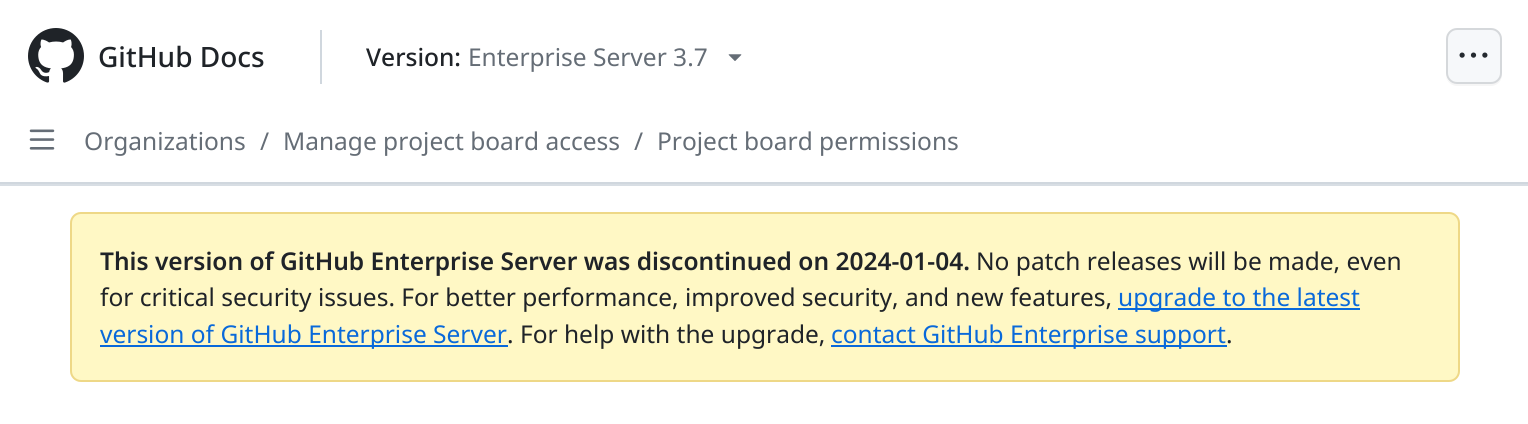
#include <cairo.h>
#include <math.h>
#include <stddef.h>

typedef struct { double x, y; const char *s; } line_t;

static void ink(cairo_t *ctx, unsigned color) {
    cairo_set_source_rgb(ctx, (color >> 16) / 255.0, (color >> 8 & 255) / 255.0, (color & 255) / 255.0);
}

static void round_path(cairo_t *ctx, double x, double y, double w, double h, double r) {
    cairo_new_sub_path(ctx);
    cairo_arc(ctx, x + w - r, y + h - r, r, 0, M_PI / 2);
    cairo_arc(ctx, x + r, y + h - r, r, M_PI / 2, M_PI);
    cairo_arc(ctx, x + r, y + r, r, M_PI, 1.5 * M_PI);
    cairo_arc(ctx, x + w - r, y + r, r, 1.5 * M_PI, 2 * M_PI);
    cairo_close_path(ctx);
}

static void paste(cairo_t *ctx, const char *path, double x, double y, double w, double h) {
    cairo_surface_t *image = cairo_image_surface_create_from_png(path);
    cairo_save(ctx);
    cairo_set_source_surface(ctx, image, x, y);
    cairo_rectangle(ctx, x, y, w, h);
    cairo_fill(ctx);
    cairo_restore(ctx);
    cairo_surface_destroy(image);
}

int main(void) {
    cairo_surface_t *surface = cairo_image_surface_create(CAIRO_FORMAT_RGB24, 1528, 424);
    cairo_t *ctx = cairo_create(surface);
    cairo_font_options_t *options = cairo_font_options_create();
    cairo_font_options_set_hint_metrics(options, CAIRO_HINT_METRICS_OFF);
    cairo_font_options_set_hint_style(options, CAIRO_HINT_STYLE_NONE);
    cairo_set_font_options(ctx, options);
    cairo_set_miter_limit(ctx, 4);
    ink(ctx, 0xFFFFFF);
    cairo_paint(ctx);
    ink(ctx, 0xD8DEE4);
    cairo_rectangle(ctx, 0, 184, 1528, 2);
    cairo_fill(ctx);
    ink(ctx, 0xD0D7DE);
    cairo_rectangle(ctx, 0, 182, 1528, 2);
    cairo_fill(ctx);
    paste(ctx, "media/1.png", 28, 28, 56, 55);
    cairo_select_font_face(ctx, "Noto Sans Medium", CAIRO_FONT_SLANT_NORMAL, CAIRO_FONT_WEIGHT_NORMAL);
    cairo_set_font_size(ctx, 28);
    ink(ctx, 0x1F2328);
    cairo_move_to(ctx, 98, 67);
    cairo_show_text(ctx, "GitHub Docs");
    ink(ctx, 0xD0D7DE);
    cairo_rectangle(ctx, 320, 30, 2, 54);
    cairo_fill(ctx);
    cairo_set_font_size(ctx, 24.5);
    ink(ctx, 0x1F2328);
    cairo_move_to(ctx, 366, 66);
    cairo_show_text(ctx, "Version:");
    cairo_select_font_face(ctx, "Noto Sans", CAIRO_FONT_SLANT_NORMAL, CAIRO_FONT_WEIGHT_NORMAL);
    ink(ctx, 0x656D76);
    cairo_move_to(ctx, 468, 66);
    cairo_show_text(ctx, "Enterprise Server 3.7");
    paste(ctx, "media/2.png", 728, 54, 14, 7);
    ink(ctx, 0xF6F6F6);
    cairo_new_path(ctx);
    cairo_move_to(ctx, 1446, 77);
    cairo_curve_to(ctx, 1447, 82, 1452, 86, 1457, 86);
    cairo_line_to(ctx, 1491, 86);
    cairo_curve_to(ctx, 1497, 86, 1502, 81, 1502, 75);
    cairo_line_to(ctx, 1502, 41);
    cairo_line_to(ctx, 1501, 38);
    cairo_line_to(ctx, 1501, 76);
    cairo_line_to(ctx, 1500, 79);
    cairo_curve_to(ctx, 1496, 84, 1491, 84, 1485, 84);
    cairo_line_to(ctx, 1462, 84);
    cairo_curve_to(ctx, 1456, 84, 1449, 84, 1446, 77);
    cairo_close_path(ctx);
    cairo_fill(ctx);
    ink(ctx, 0xF6F8FA);
    round_path(ctx, 1446, 28, 56, 56, 11);
    cairo_fill(ctx);
    round_path(ctx, 1447, 29, 54, 54, 10);
    cairo_set_source_rgba(ctx, 0.122, 0.137, 0.157, 0.15);
    cairo_stroke(ctx);
    paste(ctx, "media/3.png", 1459, 52, 29, 6);
    paste(ctx, "media/4.png", 29, 129, 26, 21);
    ink(ctx, 0x656D76);
    {
        static const line_t items[] = {
            {84, 150, "Organizations"},
            {260, 150, "/"},
            {283, 150, "Manage project board access"},
            {634, 150, "/"},
            {657, 150, "Project board permissions"},
        };
        for (size_t i = 0; i < sizeof items / sizeof *items; i++) {
            cairo_move_to(ctx, items[i].x, items[i].y);
            cairo_show_text(ctx, items[i].s);
        }
    }
    ink(ctx, 0xFFF8C5);
    round_path(ctx, 70, 212, 1390, 170, 11);
    cairo_fill(ctx);
    round_path(ctx, 71, 213, 1388, 168, 10);
    cairo_set_source_rgba(ctx, 0.831, 0.655, 0.173, 0.4);
    cairo_stroke(ctx);
    cairo_select_font_face(ctx, "Noto Sans SemiBold", CAIRO_FONT_SLANT_NORMAL, CAIRO_FONT_WEIGHT_NORMAL);
    ink(ctx, 0x1F2328);
    cairo_move_to(ctx, 100, 270);
    cairo_show_text(ctx, "This version of GitHub Enterprise Server was discontinued on 2024-01-04.");
    cairo_select_font_face(ctx, "Noto Sans", CAIRO_FONT_SLANT_NORMAL, CAIRO_FONT_WEIGHT_NORMAL);
    cairo_move_to(ctx, 976, 270);
    cairo_show_text(ctx, "No patch releases will be made, even");
    cairo_move_to(ctx, 100, 306);
    cairo_show_text(ctx, "for critical security issues. For better performance, improved security, and new features,");
    ink(ctx, 0x0969DA);
    cairo_rectangle(ctx, 1118, 308, 242, 2);
    cairo_fill(ctx);
    cairo_move_to(ctx, 1118, 306);
    cairo_show_text(ctx, "upgrade to the latest");
    cairo_rectangle(ctx, 100, 345, 408, 2);
    cairo_fill(ctx);
    cairo_move_to(ctx, 100, 343);
    cairo_show_text(ctx, "version of GitHub Enterprise Server");
    ink(ctx, 0x1F2328);
    cairo_move_to(ctx, 507, 343);
    cairo_show_text(ctx, ". For help with the upgrade,");
    ink(ctx, 0x0969DA);
    cairo_rectangle(ctx, 831, 345, 396, 2);
    cairo_fill(ctx);
    cairo_move_to(ctx, 831, 343);
    cairo_show_text(ctx, "contact GitHub Enterprise support");
    ink(ctx, 0x1F2328);
    cairo_move_to(ctx, 1226, 343);
    cairo_show_text(ctx, ".");
    cairo_surface_write_to_png(surface, "image.png");
    cairo_font_options_destroy(options);
    cairo_destroy(ctx);
    cairo_surface_destroy(surface);
    return 0;
}
